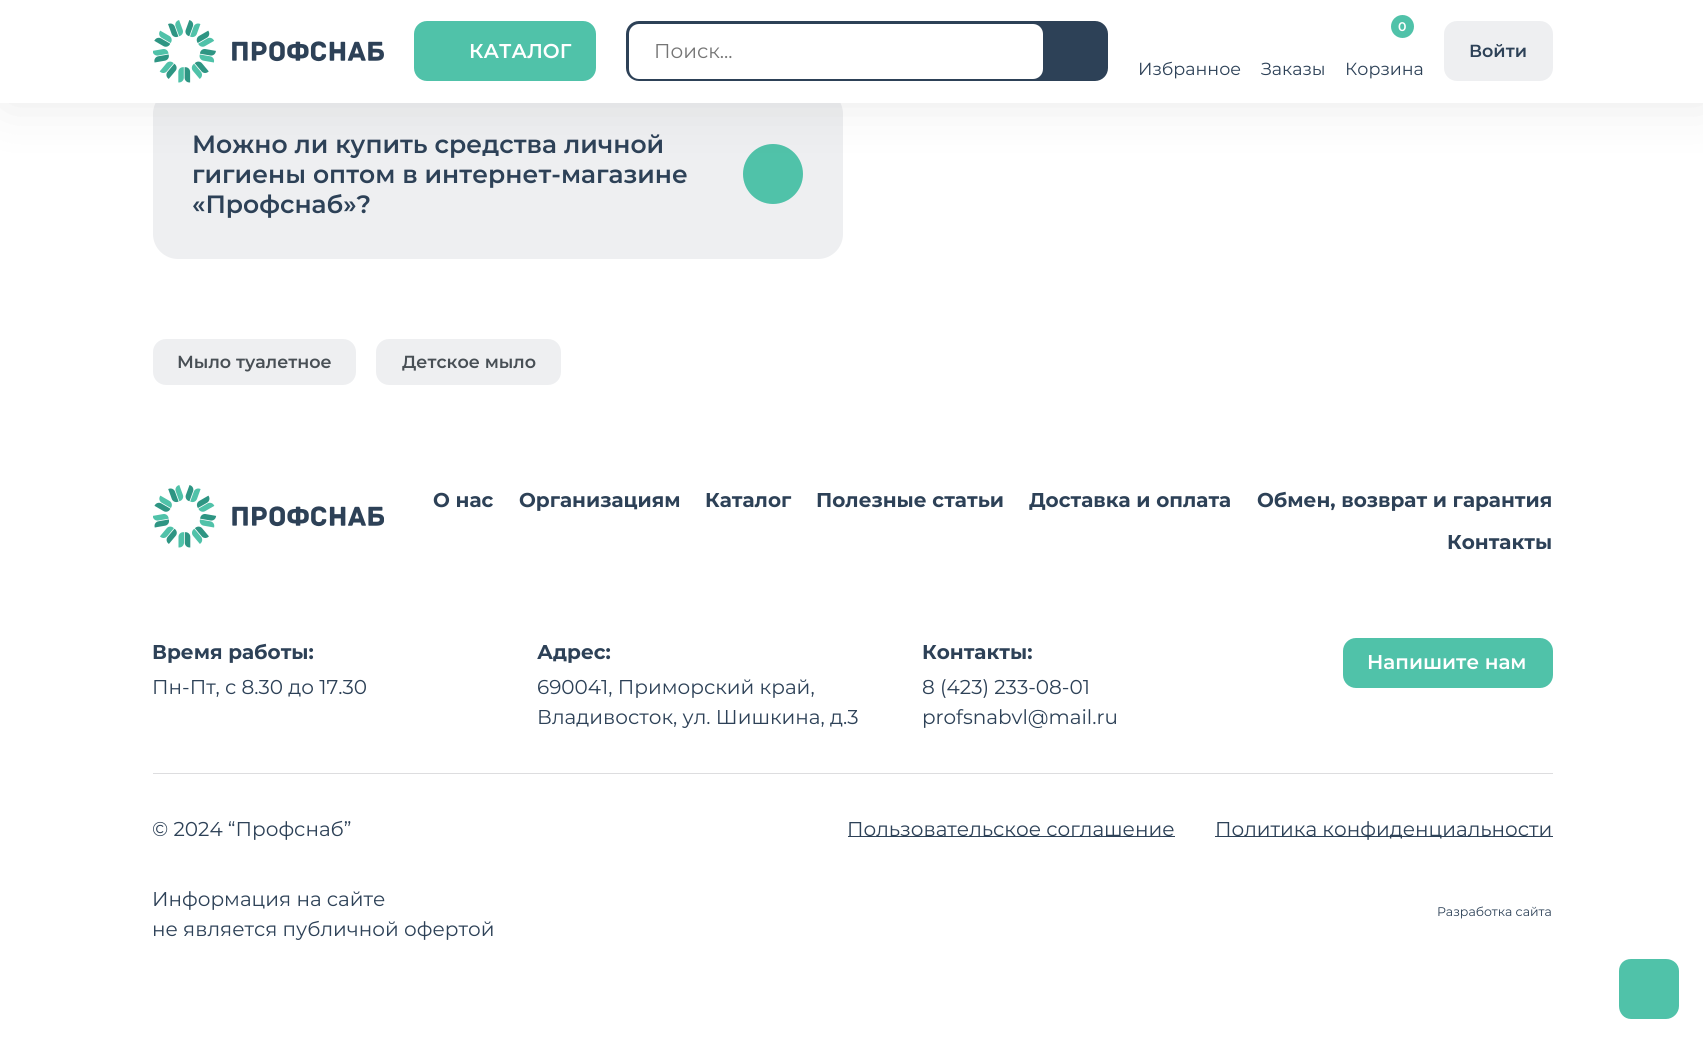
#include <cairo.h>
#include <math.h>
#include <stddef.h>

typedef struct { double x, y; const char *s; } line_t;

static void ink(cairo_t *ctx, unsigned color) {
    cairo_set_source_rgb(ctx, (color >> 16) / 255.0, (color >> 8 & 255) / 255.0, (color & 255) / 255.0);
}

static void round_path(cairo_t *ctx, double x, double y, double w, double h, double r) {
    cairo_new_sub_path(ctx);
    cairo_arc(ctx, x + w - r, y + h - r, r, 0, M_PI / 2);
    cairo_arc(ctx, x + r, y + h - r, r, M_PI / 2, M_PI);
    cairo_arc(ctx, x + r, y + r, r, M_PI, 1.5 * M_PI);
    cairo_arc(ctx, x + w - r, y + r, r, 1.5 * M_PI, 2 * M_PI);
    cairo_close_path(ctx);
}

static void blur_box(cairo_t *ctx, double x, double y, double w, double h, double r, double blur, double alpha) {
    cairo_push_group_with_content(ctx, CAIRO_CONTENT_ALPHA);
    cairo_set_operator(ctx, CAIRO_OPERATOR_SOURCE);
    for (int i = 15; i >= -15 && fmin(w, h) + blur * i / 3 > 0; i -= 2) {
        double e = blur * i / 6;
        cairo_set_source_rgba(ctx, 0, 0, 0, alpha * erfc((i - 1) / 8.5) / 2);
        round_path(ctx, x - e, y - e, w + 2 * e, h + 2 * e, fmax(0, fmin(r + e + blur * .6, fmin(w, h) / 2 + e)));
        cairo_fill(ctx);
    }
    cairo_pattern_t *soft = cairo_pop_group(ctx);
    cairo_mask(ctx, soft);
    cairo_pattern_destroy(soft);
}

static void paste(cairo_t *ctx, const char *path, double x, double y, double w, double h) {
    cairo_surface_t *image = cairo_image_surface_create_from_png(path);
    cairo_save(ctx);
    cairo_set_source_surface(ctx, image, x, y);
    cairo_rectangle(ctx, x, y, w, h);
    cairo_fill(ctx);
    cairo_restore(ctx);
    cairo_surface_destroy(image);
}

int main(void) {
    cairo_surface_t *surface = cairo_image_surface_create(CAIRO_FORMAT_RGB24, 1703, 1043);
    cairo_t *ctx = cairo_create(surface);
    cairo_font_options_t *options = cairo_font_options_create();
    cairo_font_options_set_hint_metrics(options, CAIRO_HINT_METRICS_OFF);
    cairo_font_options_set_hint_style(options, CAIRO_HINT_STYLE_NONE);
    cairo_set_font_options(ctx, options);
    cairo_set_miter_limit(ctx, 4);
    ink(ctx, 0xFFFFFF);
    cairo_paint(ctx);
    ink(ctx, 0xEEEFF1);
    round_path(ctx, 153, 89, 690, 170, 25);
    cairo_fill(ctx);
    ink(ctx, 0x50C2A9);
    cairo_arc(ctx, 773, 174, 30, 0, 2 * M_PI);
    cairo_fill(ctx);
    ink(ctx, 0x000000);
    blur_box(ctx, 5, 0, 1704, 103, 0, 27.5, 0.09);
    ink(ctx, 0xFFFFFF);
    cairo_rectangle(ctx, 0, 0, 1703, 103);
    cairo_fill(ctx);
    paste(ctx, "media/1.png", 153, 20, 231, 63);
    ink(ctx, 0x50C2A9);
    round_path(ctx, 414, 21, 182, 60, 13);
    cairo_fill(ctx);
    cairo_select_font_face(ctx, "Montserrat SemiBold", CAIRO_FONT_SLANT_NORMAL, CAIRO_FONT_WEIGHT_NORMAL);
    cairo_set_font_size(ctx, 20);
    ink(ctx, 0xFFFFFF);
    cairo_move_to(ctx, 469, 58);
    cairo_show_text(ctx, "КАТАЛОГ");
    ink(ctx, 0x2D4157);
    round_path(ctx, 626, 21, 482, 60, 13);
    cairo_fill(ctx);
    ink(ctx, 0xFFFFFF);
    round_path(ctx, 629, 24, 414, 55, 10);
    cairo_fill(ctx);
    cairo_select_font_face(ctx, "Montserrat", CAIRO_FONT_SLANT_NORMAL, CAIRO_FONT_WEIGHT_NORMAL);
    ink(ctx, 0x757575);
    cairo_move_to(ctx, 654, 58);
    cairo_show_text(ctx, "Поиск...");
    ink(ctx, 0x50C2A9);
    cairo_new_path(ctx);
    cairo_arc(ctx, 1402.5, 26.5, 11.5, 0, 2 * M_PI);
    cairo_fill(ctx);
    cairo_select_font_face(ctx, "Montserrat SemiBold", CAIRO_FONT_SLANT_NORMAL, CAIRO_FONT_WEIGHT_NORMAL);
    cairo_set_font_size(ctx, 12.5);
    ink(ctx, 0xFFFFFF);
    cairo_move_to(ctx, 1398, 31);
    cairo_show_text(ctx, "0");
    cairo_select_font_face(ctx, "Montserrat", CAIRO_FONT_SLANT_NORMAL, CAIRO_FONT_WEIGHT_NORMAL);
    cairo_set_font_size(ctx, 17.5);
    ink(ctx, 0x2D4157);
    cairo_move_to(ctx, 1345, 75);
    cairo_show_text(ctx, "Корзина");
    ink(ctx, 0xEEEFF1);
    round_path(ctx, 1444, 21, 109, 60, 13);
    cairo_fill(ctx);
    cairo_select_font_face(ctx, "Montserrat SemiBold", CAIRO_FONT_SLANT_NORMAL, CAIRO_FONT_WEIGHT_NORMAL);
    ink(ctx, 0x2D4157);
    cairo_move_to(ctx, 1469, 57);
    cairo_show_text(ctx, "Войти");
    cairo_select_font_face(ctx, "Montserrat", CAIRO_FONT_SLANT_NORMAL, CAIRO_FONT_WEIGHT_NORMAL);
    cairo_move_to(ctx, 1138, 75);
    cairo_show_text(ctx, "Избранное");
    cairo_move_to(ctx, 1261, 75);
    cairo_show_text(ctx, "Заказы");
    cairo_select_font_face(ctx, "Montserrat SemiBold", CAIRO_FONT_SLANT_NORMAL, CAIRO_FONT_WEIGHT_NORMAL);
    cairo_set_font_size(ctx, 25);
    {
        static const line_t items[] = {
            {192, 153, "Можно ли купить средства личной"},
            {192, 183, "гигиены оптом в интернет-магазине"},
            {192, 213, "«Профснаб»?"},
        };
        for (size_t i = 0; i < sizeof items / sizeof *items; i++) {
            cairo_move_to(ctx, items[i].x, items[i].y);
            cairo_show_text(ctx, items[i].s);
        }
    }
    ink(ctx, 0xEEEFF1);
    round_path(ctx, 153, 339, 203, 46, 13);
    cairo_fill(ctx);
    cairo_set_font_size(ctx, 17.5);
    ink(ctx, 0x484F55);
    cairo_move_to(ctx, 177, 368);
    cairo_show_text(ctx, "Мыло туалетное");
    ink(ctx, 0xEEEFF1);
    round_path(ctx, 376, 339, 185, 46, 13);
    cairo_fill(ctx);
    ink(ctx, 0x484F55);
    cairo_move_to(ctx, 402, 368);
    cairo_show_text(ctx, "Детское мыло");
    paste(ctx, "media/2.png", 153, 485, 231, 63);
    cairo_select_font_face(ctx, "Montserrat", CAIRO_FONT_SLANT_NORMAL, CAIRO_FONT_WEIGHT_BOLD);
    cairo_set_font_size(ctx, 20);
    ink(ctx, 0x2D4157);
    {
        static const line_t items[] = {
            {433, 507, "О нас"},
            {519, 507, "Организациям"},
            {705, 507, "Каталог"},
            {816, 507, "Полезные статьи"},
            {1029, 507, "Доставка и оплата"},
            {1257, 507, "Обмен, возврат и гарантия"},
            {1447, 549, "Контакты"},
            {152, 659, "Время работы:"},
        };
        for (size_t i = 0; i < sizeof items / sizeof *items; i++) {
            cairo_move_to(ctx, items[i].x, items[i].y);
            cairo_show_text(ctx, items[i].s);
        }
    }
    cairo_select_font_face(ctx, "Montserrat", CAIRO_FONT_SLANT_NORMAL, CAIRO_FONT_WEIGHT_NORMAL);
    cairo_move_to(ctx, 152, 694);
    cairo_show_text(ctx, "Пн-Пт, с 8.30 до 17.30");
    cairo_select_font_face(ctx, "Montserrat", CAIRO_FONT_SLANT_NORMAL, CAIRO_FONT_WEIGHT_BOLD);
    cairo_move_to(ctx, 537, 659);
    cairo_show_text(ctx, "Адрес:");
    cairo_select_font_face(ctx, "Montserrat", CAIRO_FONT_SLANT_NORMAL, CAIRO_FONT_WEIGHT_NORMAL);
    cairo_move_to(ctx, 537, 694);
    cairo_show_text(ctx, "690041, Приморский край,");
    cairo_move_to(ctx, 537, 724);
    cairo_show_text(ctx, "Владивосток, ул. Шишкина, д.3");
    cairo_select_font_face(ctx, "Montserrat", CAIRO_FONT_SLANT_NORMAL, CAIRO_FONT_WEIGHT_BOLD);
    cairo_move_to(ctx, 922, 659);
    cairo_show_text(ctx, "Контакты:");
    cairo_select_font_face(ctx, "Montserrat", CAIRO_FONT_SLANT_NORMAL, CAIRO_FONT_WEIGHT_NORMAL);
    cairo_move_to(ctx, 922, 694);
    cairo_show_text(ctx, "8 (423) 233-08-01");
    cairo_move_to(ctx, 922, 724);
    cairo_show_text(ctx, "profsnabvl@mail.ru");
    ink(ctx, 0x50C2A9);
    round_path(ctx, 1343, 638, 210, 50, 13);
    cairo_fill(ctx);
    cairo_select_font_face(ctx, "Montserrat SemiBold", CAIRO_FONT_SLANT_NORMAL, CAIRO_FONT_WEIGHT_NORMAL);
    ink(ctx, 0xFFFFFF);
    cairo_move_to(ctx, 1367, 669);
    cairo_show_text(ctx, "Напишите нам");
    ink(ctx, 0xDDDDDF);
    cairo_rectangle(ctx, 153, 773, 1400, 1);
    cairo_fill(ctx);
    cairo_select_font_face(ctx, "Montserrat", CAIRO_FONT_SLANT_NORMAL, CAIRO_FONT_WEIGHT_NORMAL);
    ink(ctx, 0x2D4157);
    cairo_move_to(ctx, 152, 836);
    cairo_show_text(ctx, "© 2024 “Профснаб”");
    cairo_rectangle(ctx, 848, 836, 327, 1);
    cairo_fill(ctx);
    cairo_move_to(ctx, 847, 836);
    cairo_show_text(ctx, "Пользовательское соглашение");
    cairo_rectangle(ctx, 1215, 836, 338, 1);
    cairo_fill(ctx);
    {
        static const line_t items[] = {
            {1215, 836, "Политика конфиденциальности"},
            {152, 906, "Информация на сайте"},
            {152, 936, "не является публичной офертой"},
        };
        for (size_t i = 0; i < sizeof items / sizeof *items; i++) {
            cairo_move_to(ctx, items[i].x, items[i].y);
            cairo_show_text(ctx, items[i].s);
        }
    }
    cairo_set_font_size(ctx, 12.5);
    cairo_move_to(ctx, 1437, 916);
    cairo_show_text(ctx, "Разработка сайта");
    ink(ctx, 0x50C2A9);
    cairo_new_path(ctx);
    cairo_move_to(ctx, 1619, 1006);
    cairo_line_to(ctx, 1619, 971);
    cairo_curve_to(ctx, 1619, 964, 1624, 959, 1631, 959);
    cairo_line_to(ctx, 1666, 959);
    cairo_curve_to(ctx, 1673, 959, 1679, 964, 1679, 971);
    cairo_line_to(ctx, 1679, 1006);
    cairo_curve_to(ctx, 1679, 1013, 1673, 1019, 1666, 1019);
    cairo_line_to(ctx, 1631, 1019);
    cairo_curve_to(ctx, 1624, 1019, 1619, 1013, 1619, 1006);
    cairo_close_path(ctx);
    cairo_fill(ctx);
    cairo_surface_write_to_png(surface, "image.png");
    cairo_font_options_destroy(options);
    cairo_destroy(ctx);
    cairo_surface_destroy(surface);
    return 0;
}
